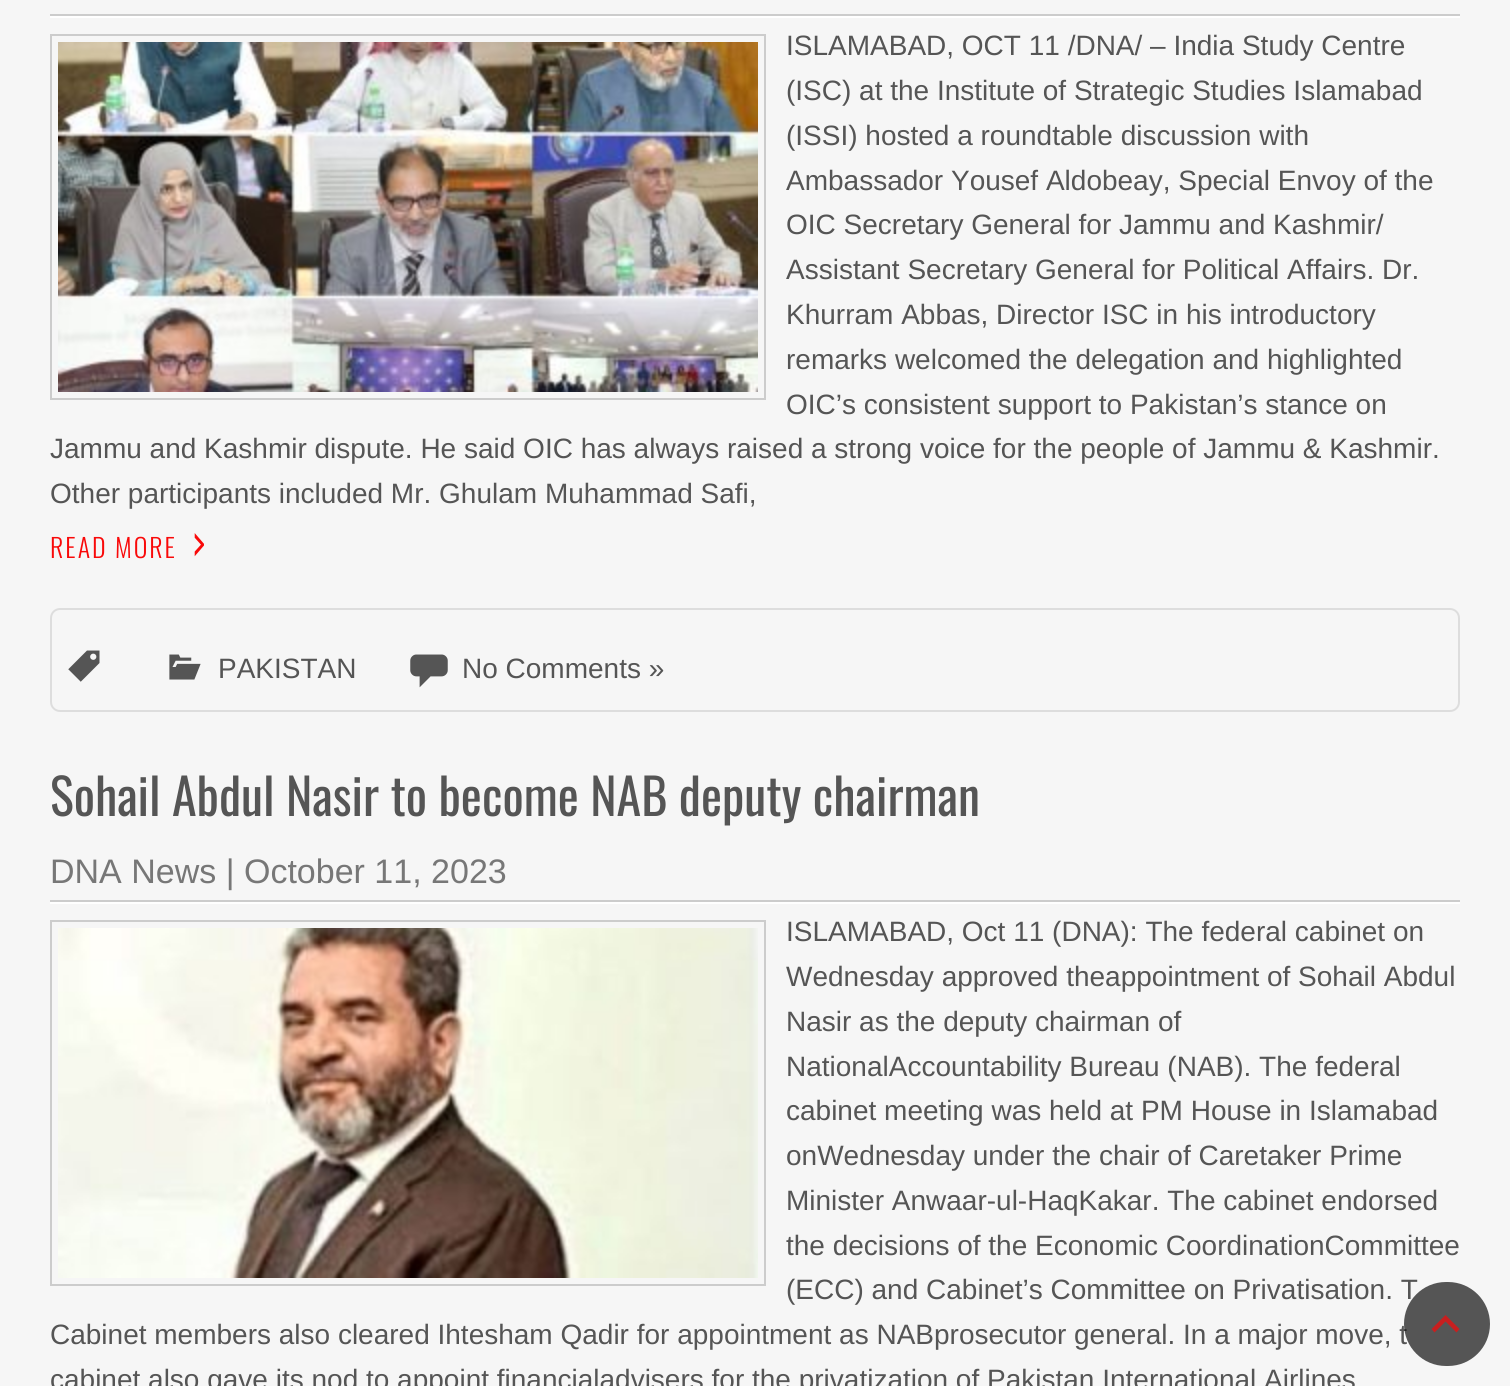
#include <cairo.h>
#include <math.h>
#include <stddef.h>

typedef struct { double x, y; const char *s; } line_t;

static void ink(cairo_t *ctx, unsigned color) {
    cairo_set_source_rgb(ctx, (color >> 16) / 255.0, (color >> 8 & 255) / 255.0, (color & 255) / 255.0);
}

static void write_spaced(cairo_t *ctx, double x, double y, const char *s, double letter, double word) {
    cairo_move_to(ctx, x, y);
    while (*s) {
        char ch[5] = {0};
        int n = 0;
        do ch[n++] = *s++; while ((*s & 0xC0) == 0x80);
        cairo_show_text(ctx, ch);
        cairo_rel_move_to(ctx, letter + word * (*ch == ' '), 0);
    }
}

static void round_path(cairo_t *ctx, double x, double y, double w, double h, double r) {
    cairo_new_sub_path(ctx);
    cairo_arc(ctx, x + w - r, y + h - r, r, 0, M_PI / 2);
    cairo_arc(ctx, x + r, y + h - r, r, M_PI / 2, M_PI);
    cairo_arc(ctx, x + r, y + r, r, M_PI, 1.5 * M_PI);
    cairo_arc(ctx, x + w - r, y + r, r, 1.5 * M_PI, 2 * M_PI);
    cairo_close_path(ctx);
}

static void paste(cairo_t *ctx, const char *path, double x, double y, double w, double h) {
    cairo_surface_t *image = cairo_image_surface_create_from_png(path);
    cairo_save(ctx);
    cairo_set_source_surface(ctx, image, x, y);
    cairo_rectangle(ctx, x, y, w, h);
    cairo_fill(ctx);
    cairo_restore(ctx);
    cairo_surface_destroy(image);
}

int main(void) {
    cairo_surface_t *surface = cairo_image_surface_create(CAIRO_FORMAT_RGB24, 1510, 1386);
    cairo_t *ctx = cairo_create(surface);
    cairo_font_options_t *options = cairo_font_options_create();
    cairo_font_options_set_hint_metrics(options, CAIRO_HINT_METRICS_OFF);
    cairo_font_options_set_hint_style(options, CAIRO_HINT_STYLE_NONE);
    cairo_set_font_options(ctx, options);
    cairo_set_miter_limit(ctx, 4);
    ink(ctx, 0xF6F6F6);
    cairo_paint(ctx);
    ink(ctx, 0xCCCCCC);
    cairo_rectangle(ctx, 50, 14, 1410, 2);
    cairo_fill(ctx);
    ink(ctx, 0xFFFFFF);
    cairo_rectangle(ctx, 50, 16, 1410, 2);
    cairo_fill(ctx);
    cairo_rectangle(ctx, 51, 35, 714, 364);
    ink(ctx, 0xCCCCCC);
    cairo_stroke(ctx);
    paste(ctx, "media/1.png", 58, 42, 700, 350);
    cairo_select_font_face(ctx, "Liberation Sans", CAIRO_FONT_SLANT_NORMAL, CAIRO_FONT_WEIGHT_NORMAL);
    cairo_set_font_size(ctx, 28);
    ink(ctx, 0x555555);
    {
        static const line_t items[] = {
            {786, 55, "ISLAMABAD, OCT 11 /DNA/ – India Study Centre"},
            {786, 100, "(ISC) at the Institute of Strategic Studies Islamabad"},
            {786, 145, "(ISSI) hosted a roundtable discussion with"},
            {786, 190, "Ambassador Yousef Aldobeay, Special Envoy of the"},
            {786, 234, "OIC Secretary General for Jammu and Kashmir/"},
            {786, 279, "Assistant Secretary General for Political Affairs. Dr."},
            {786, 324, "Khurram Abbas, Director ISC in his introductory"},
            {786, 369, "remarks welcomed the delegation and highlighted"},
            {786, 414, "OIC’s consistent support to Pakistan’s stance on"},
            {50, 458, "Jammu and Kashmir dispute. He said OIC has always raised a strong voice for the people of Jammu & Kashmir."},
            {50, 503, "Other participants included Mr. Ghulam Muhammad Safi,"},
        };
        for (size_t i = 0; i < sizeof items / sizeof *items; i++) {
            cairo_move_to(ctx, items[i].x, items[i].y);
            cairo_show_text(ctx, items[i].s);
        }
    }
    cairo_select_font_face(ctx, "Oswald Light", CAIRO_FONT_SLANT_NORMAL, CAIRO_FONT_WEIGHT_NORMAL);
    cairo_set_font_size(ctx, 26);
    ink(ctx, 0xF90909);
    write_spaced(ctx, 50, 558, "READ MORE", 2, 0);
    cairo_set_font_size(ctx, 50);
    write_spaced(ctx, 191, 562, "›", 2, 0);
    round_path(ctx, 51, 609, 1408, 102, 9);
    ink(ctx, 0xDDDDDD);
    cairo_stroke(ctx);
    paste(ctx, "media/2.png", 68, 650, 32, 32);
    paste(ctx, "media/3.png", 169, 654, 32, 26);
    cairo_select_font_face(ctx, "Liberation Sans", CAIRO_FONT_SLANT_NORMAL, CAIRO_FONT_WEIGHT_NORMAL);
    cairo_set_font_size(ctx, 28);
    ink(ctx, 0x555555);
    cairo_move_to(ctx, 218, 678);
    cairo_show_text(ctx, "PAKISTAN");
    paste(ctx, "media/4.png", 410, 654, 38, 34);
    cairo_move_to(ctx, 462, 678);
    cairo_show_text(ctx, "No Comments »");
    cairo_select_font_face(ctx, "Oswald", CAIRO_FONT_SLANT_NORMAL, CAIRO_FONT_WEIGHT_NORMAL);
    cairo_set_font_size(ctx, 50);
    cairo_move_to(ctx, 50, 816);
    cairo_show_text(ctx, "Sohail Abdul Nasir to become NAB deputy chairman");
    cairo_select_font_face(ctx, "Liberation Sans", CAIRO_FONT_SLANT_NORMAL, CAIRO_FONT_WEIGHT_NORMAL);
    cairo_set_font_size(ctx, 34);
    ink(ctx, 0x777777);
    cairo_move_to(ctx, 50, 883);
    cairo_show_text(ctx, "DNA News | October 11, 2023");
    ink(ctx, 0xCCCCCC);
    cairo_rectangle(ctx, 50, 900, 1410, 2);
    cairo_fill(ctx);
    ink(ctx, 0xFFFFFF);
    cairo_rectangle(ctx, 50, 902, 1410, 2);
    cairo_fill(ctx);
    cairo_rectangle(ctx, 51, 921, 714, 364);
    ink(ctx, 0xCCCCCC);
    cairo_stroke(ctx);
    paste(ctx, "media/5.png", 58, 928, 700, 350);
    cairo_set_font_size(ctx, 28);
    ink(ctx, 0x555555);
    {
        static const line_t items[] = {
            {786, 941, "ISLAMABAD, Oct 11 (DNA): The federal cabinet on"},
            {786, 986, "Wednesday approved theappointment of Sohail Abdul"},
            {786, 1031, "Nasir as the deputy chairman of"},
            {786, 1076, "NationalAccountability Bureau (NAB). The federal"},
            {786, 1120, "cabinet meeting was held at PM House in Islamabad"},
            {786, 1165, "onWednesday under the chair of Caretaker Prime"},
            {786, 1210, "Minister Anwaar-ul-HaqKakar. The cabinet endorsed"},
            {786, 1255, "the decisions of the Economic CoordinationCommittee"},
            {786, 1299, "(ECC) and Cabinet’s Committee on Privatisation. T"},
            {50, 1344, "Cabinet members also cleared Ihtesham Qadir for appointment as NABprosecutor general. In a major move, t"},
            {50, 1389, "cabinet also gave its nod to appoint financialadvisers for the privatization of Pakistan International Airlines"},
        };
        for (size_t i = 0; i < sizeof items / sizeof *items; i++) {
            cairo_move_to(ctx, items[i].x, items[i].y);
            cairo_show_text(ctx, items[i].s);
        }
    }
    cairo_set_source_rgba(ctx, 0.067, 0.067, 0.067, 0.7);
    round_path(ctx, 1404, 1282, 86, 84, 42);
    cairo_fill(ctx);
    cairo_set_source_rgba(ctx, 0.976, 0.035, 0.035, 0.7);
    cairo_new_path(ctx);
    cairo_move_to(ctx, 1431.5, 1329);
    cairo_line_to(ctx, 1445.5, 1315);
    cairo_line_to(ctx, 1459.5, 1329);
    cairo_line_to(ctx, 1456.5, 1332.5);
    cairo_line_to(ctx, 1445.5, 1321.5);
    cairo_line_to(ctx, 1434.5, 1332.5);
    cairo_close_path(ctx);
    cairo_fill(ctx);
    cairo_surface_write_to_png(surface, "image.png");
    cairo_font_options_destroy(options);
    cairo_destroy(ctx);
    cairo_surface_destroy(surface);
    return 0;
}
